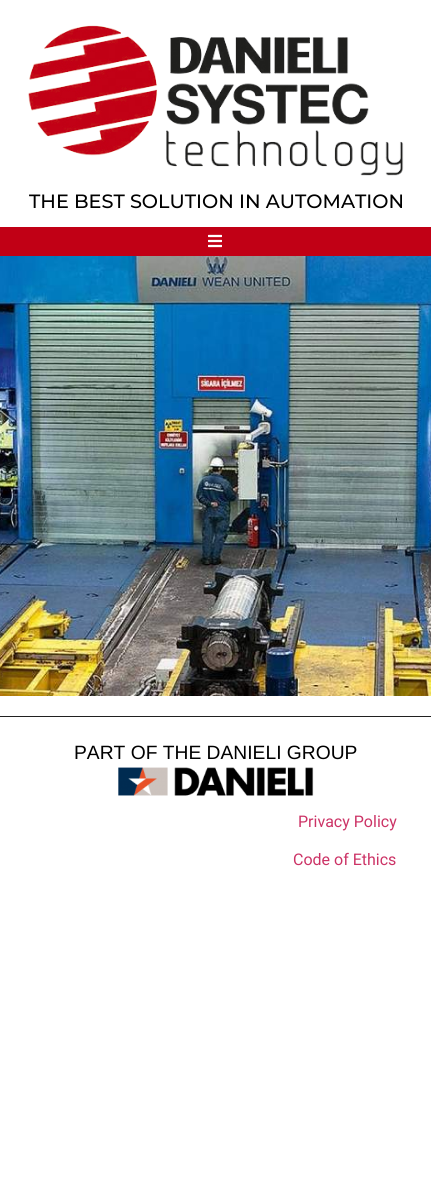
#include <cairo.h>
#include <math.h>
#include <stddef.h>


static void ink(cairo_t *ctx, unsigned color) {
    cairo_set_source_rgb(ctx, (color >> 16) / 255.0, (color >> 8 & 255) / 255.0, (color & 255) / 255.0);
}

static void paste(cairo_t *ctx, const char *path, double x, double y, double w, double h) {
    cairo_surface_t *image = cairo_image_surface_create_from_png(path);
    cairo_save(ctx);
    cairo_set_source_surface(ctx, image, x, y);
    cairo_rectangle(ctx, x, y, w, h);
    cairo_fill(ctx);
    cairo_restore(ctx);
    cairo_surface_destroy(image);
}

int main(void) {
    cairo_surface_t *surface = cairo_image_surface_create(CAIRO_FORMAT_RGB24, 431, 1181);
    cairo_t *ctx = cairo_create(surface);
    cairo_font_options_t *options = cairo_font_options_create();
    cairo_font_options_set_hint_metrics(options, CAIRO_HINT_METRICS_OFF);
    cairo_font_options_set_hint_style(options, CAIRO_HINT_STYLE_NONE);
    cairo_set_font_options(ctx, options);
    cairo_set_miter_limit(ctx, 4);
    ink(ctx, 0xFFFFFF);
    cairo_paint(ctx);
    paste(ctx, "media/1.png", 28, 25, 376, 151);
    cairo_select_font_face(ctx, "Montserrat Medium", CAIRO_FONT_SLANT_NORMAL, CAIRO_FONT_WEIGHT_NORMAL);
    cairo_set_font_size(ctx, 19.25);
    ink(ctx, 0x000000);
    cairo_move_to(ctx, 29, 208);
    cairo_show_text(ctx, "THE BEST SOLUTION IN AUTOMATION");
    ink(ctx, 0xC10015);
    cairo_rectangle(ctx, 0, 227, 431, 29);
    cairo_fill(ctx);
    paste(ctx, "media/2.png", 208, 234, 14, 14);
    paste(ctx, "media/3.png", 0, 256, 431, 440);
    ink(ctx, 0x202020);
    cairo_rectangle(ctx, 0, 716, 431, 1);
    cairo_fill(ctx);
    cairo_select_font_face(ctx, "Liberation Sans", CAIRO_FONT_SLANT_NORMAL, CAIRO_FONT_WEIGHT_NORMAL);
    ink(ctx, 0x000000);
    cairo_move_to(ctx, 74, 759);
    cairo_show_text(ctx, "PART OF THE DANIELI GROUP");
    paste(ctx, "media/4.png", 118, 767, 196, 29);
    cairo_select_font_face(ctx, "Roboto", CAIRO_FONT_SLANT_NORMAL, CAIRO_FONT_WEIGHT_NORMAL);
    cairo_set_font_size(ctx, 16);
    ink(ctx, 0xCC3366);
    cairo_move_to(ctx, 298, 827);
    cairo_show_text(ctx, "Privacy Policy");
    cairo_move_to(ctx, 293, 865);
    cairo_show_text(ctx, "Code of Ethics");
    cairo_surface_write_to_png(surface, "image.png");
    cairo_font_options_destroy(options);
    cairo_destroy(ctx);
    cairo_surface_destroy(surface);
    return 0;
}
